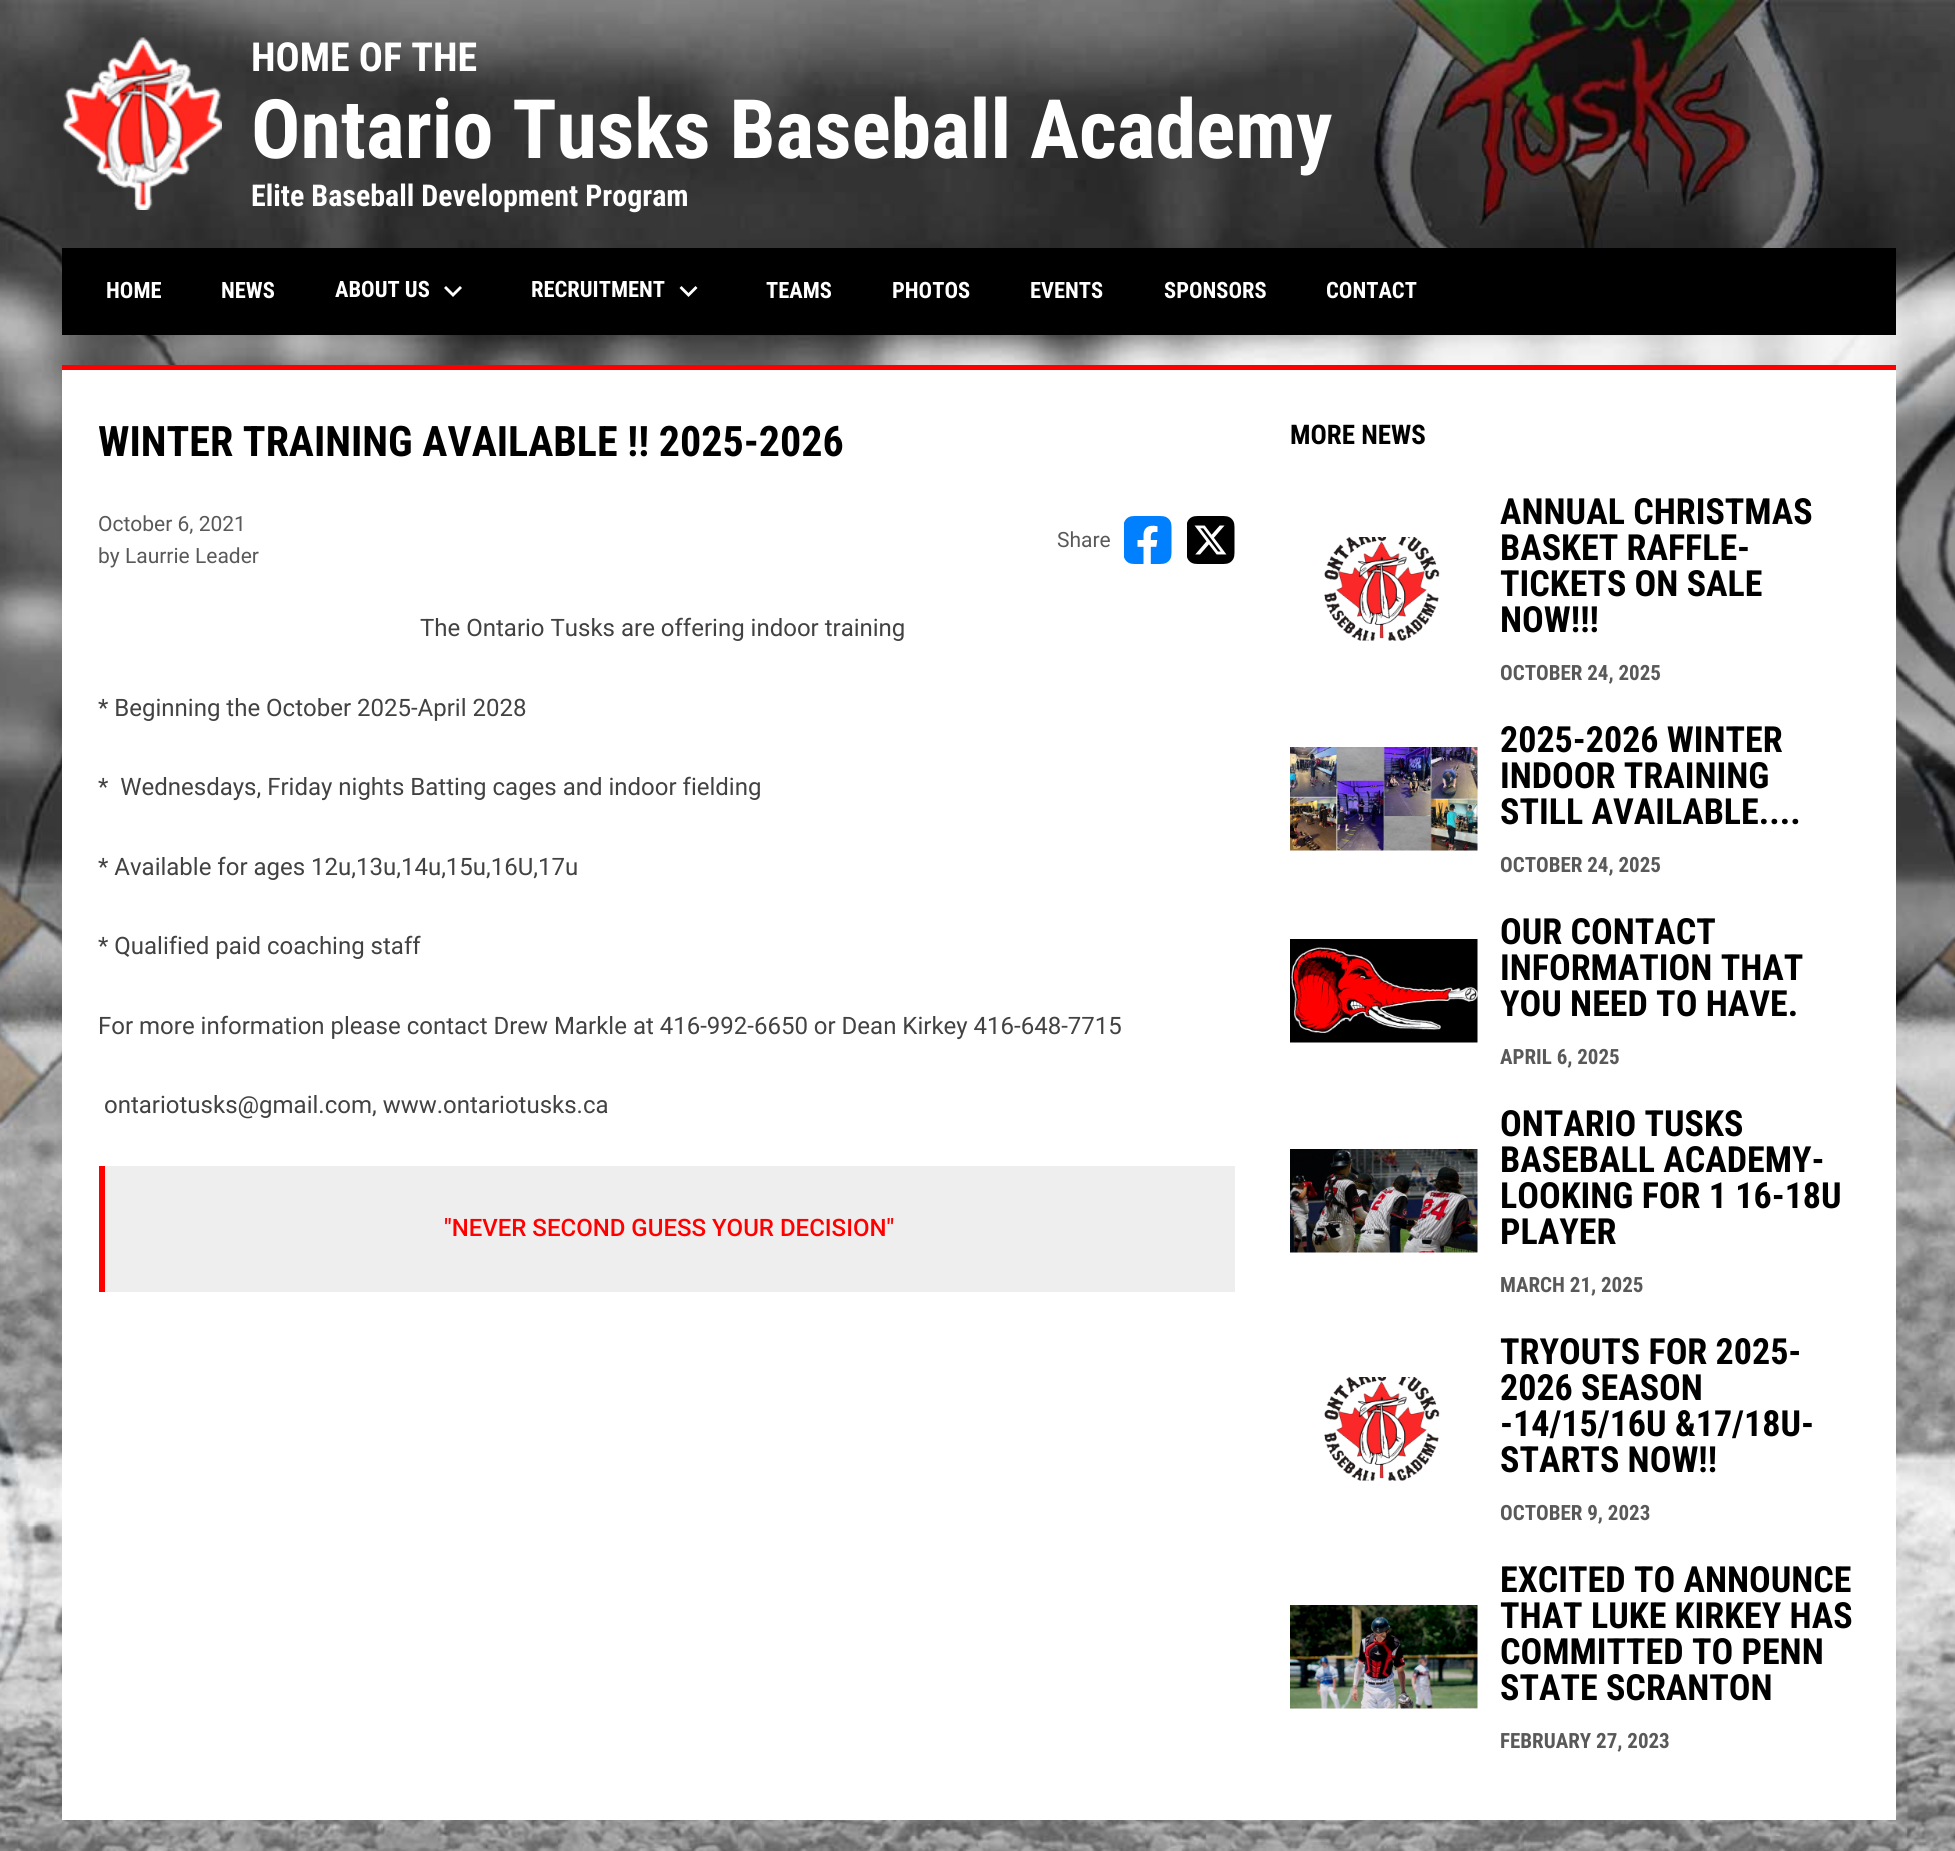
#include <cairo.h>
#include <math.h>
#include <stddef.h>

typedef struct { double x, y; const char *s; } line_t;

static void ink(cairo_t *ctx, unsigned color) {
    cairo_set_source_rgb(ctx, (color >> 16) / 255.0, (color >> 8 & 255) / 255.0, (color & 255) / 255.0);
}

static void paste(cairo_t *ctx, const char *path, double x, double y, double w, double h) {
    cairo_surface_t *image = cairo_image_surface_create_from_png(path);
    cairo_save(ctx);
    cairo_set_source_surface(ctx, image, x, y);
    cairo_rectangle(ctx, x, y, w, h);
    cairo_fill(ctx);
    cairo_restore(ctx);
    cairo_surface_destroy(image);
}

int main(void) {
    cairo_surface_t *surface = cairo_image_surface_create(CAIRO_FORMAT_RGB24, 1955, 1851);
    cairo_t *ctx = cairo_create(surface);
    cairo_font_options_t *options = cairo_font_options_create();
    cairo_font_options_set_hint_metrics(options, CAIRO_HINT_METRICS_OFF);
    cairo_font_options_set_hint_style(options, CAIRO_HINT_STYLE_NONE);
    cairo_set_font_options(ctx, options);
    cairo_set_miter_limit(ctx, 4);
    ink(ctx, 0xFFFFFF);
    cairo_paint(ctx);
    paste(ctx, "media/1.png", 0, 0, 1955, 1851);
    paste(ctx, "media/2.png", 62, 37, 160, 173);
    cairo_select_font_face(ctx, "Roboto Condensed", CAIRO_FONT_SLANT_NORMAL, CAIRO_FONT_WEIGHT_BOLD);
    cairo_set_font_size(ctx, 40);
    ink(ctx, 0xFFFFFF);
    cairo_move_to(ctx, 251, 71);
    cairo_show_text(ctx, "HOME OF THE");
    cairo_set_font_size(ctx, 82);
    cairo_move_to(ctx, 251, 158);
    cairo_show_text(ctx, "Ontario Tusks Baseball Academy");
    cairo_set_font_size(ctx, 30);
    cairo_move_to(ctx, 251, 206);
    cairo_show_text(ctx, "Elite Baseball Development Program");
    ink(ctx, 0x000000);
    cairo_rectangle(ctx, 62, 248, 1834, 87);
    cairo_fill(ctx);
    cairo_set_font_size(ctx, 22.5);
    ink(ctx, 0xFFFFFF);
    {
        static const line_t items[] = {
            {106, 298, "HOME"},
            {221, 298, "NEWS"},
            {335, 297, "ABOUT US"},
        };
        for (size_t i = 0; i < sizeof items / sizeof *items; i++) {
            cairo_move_to(ctx, items[i].x, items[i].y);
            cairo_show_text(ctx, items[i].s);
        }
    }
    cairo_new_path(ctx);
    cairo_move_to(ctx, 446, 286);
    cairo_line_to(ctx, 453, 293);
    cairo_line_to(ctx, 460, 286);
    cairo_line_to(ctx, 462, 288);
    cairo_line_to(ctx, 453, 297);
    cairo_line_to(ctx, 444, 288);
    cairo_close_path(ctx);
    cairo_fill(ctx);
    cairo_move_to(ctx, 531, 297);
    cairo_show_text(ctx, "RECRUITMENT");
    cairo_new_path(ctx);
    cairo_move_to(ctx, 681.5, 286);
    cairo_line_to(ctx, 688.5, 293);
    cairo_line_to(ctx, 695.5, 286);
    cairo_line_to(ctx, 697.5, 288);
    cairo_line_to(ctx, 688.5, 297);
    cairo_line_to(ctx, 679.5, 288);
    cairo_close_path(ctx);
    cairo_fill(ctx);
    {
        static const line_t items[] = {
            {766, 298, "TEAMS"},
            {892, 298, "PHOTOS"},
            {1030, 298, "EVENTS"},
            {1164, 298, "SPONSORS"},
            {1326, 298, "CONTACT"},
        };
        for (size_t i = 0; i < sizeof items / sizeof *items; i++) {
            cairo_move_to(ctx, items[i].x, items[i].y);
            cairo_show_text(ctx, items[i].s);
        }
    }
    cairo_rectangle(ctx, 62, 370, 1834, 1450);
    cairo_fill(ctx);
    ink(ctx, 0xFF0000);
    cairo_rectangle(ctx, 62, 365, 1834, 5);
    cairo_fill(ctx);
    cairo_set_font_size(ctx, 42);
    ink(ctx, 0x000000);
    cairo_move_to(ctx, 98, 456);
    cairo_show_text(ctx, "WINTER TRAINING AVAILABLE !! 2025-2026");
    cairo_select_font_face(ctx, "Roboto", CAIRO_FONT_SLANT_NORMAL, CAIRO_FONT_WEIGHT_NORMAL);
    cairo_set_font_size(ctx, 21);
    ink(ctx, 0x595959);
    {
        static const line_t items[] = {
            {98, 531, "October 6, 2021"},
            {98, 563, "by Laurrie Leader"},
            {1057, 547, "Share"},
        };
        for (size_t i = 0; i < sizeof items / sizeof *items; i++) {
            cairo_move_to(ctx, items[i].x, items[i].y);
            cairo_show_text(ctx, items[i].s);
        }
    }
    paste(ctx, "media/3.png", 1124, 516, 48, 48);
    paste(ctx, "media/4.png", 1187, 516, 48, 48);
    cairo_set_font_size(ctx, 24);
    ink(ctx, 0x424242);
    {
        static const line_t items[] = {
            {420, 636, "The Ontario Tusks are offering indoor training"},
            {98, 716, "* Beginning the October 2025-April 2028"},
            {98, 795, "*  Wednesdays, Friday nights Batting cages and indoor fielding"},
            {98, 875, "* Available for ages 12u,13u,14u,15u,16U,17u"},
            {98, 954, "* Qualified paid coaching staff"},
            {98, 1034, "For more information please contact Drew Markle at 416-992-6650 or Dean Kirkey 416-648-7715"},
            {104, 1113, "ontariotusks@gmail.com, www.ontariotusks.ca"},
        };
        for (size_t i = 0; i < sizeof items / sizeof *items; i++) {
            cairo_move_to(ctx, items[i].x, items[i].y);
            cairo_show_text(ctx, items[i].s);
        }
    }
    ink(ctx, 0xEEEEEE);
    cairo_rectangle(ctx, 105, 1166, 1130, 126);
    cairo_fill(ctx);
    ink(ctx, 0xFF0000);
    cairo_rectangle(ctx, 99, 1166, 6, 126);
    cairo_fill(ctx);
    cairo_select_font_face(ctx, "Roboto Medium", CAIRO_FONT_SLANT_NORMAL, CAIRO_FONT_WEIGHT_NORMAL);
    cairo_move_to(ctx, 444, 1236);
    cairo_show_text(ctx, "\"NEVER SECOND GUESS YOUR DECISION\"");
    cairo_select_font_face(ctx, "Roboto Condensed", CAIRO_FONT_SLANT_NORMAL, CAIRO_FONT_WEIGHT_BOLD);
    cairo_set_font_size(ctx, 27);
    ink(ctx, 0x000000);
    cairo_move_to(ctx, 1290, 444);
    cairo_show_text(ctx, "MORE NEWS");
    paste(ctx, "media/5.png", 1324, 537, 116, 104);
    cairo_set_font_size(ctx, 36);
    {
        static const line_t items[] = {
            {1500, 524, "ANNUAL CHRISTMAS"},
            {1500, 560, "BASKET RAFFLE-"},
            {1500, 596, "TICKETS ON SALE"},
            {1500, 632, "NOW!!!"},
        };
        for (size_t i = 0; i < sizeof items / sizeof *items; i++) {
            cairo_move_to(ctx, items[i].x, items[i].y);
            cairo_show_text(ctx, items[i].s);
        }
    }
    cairo_set_font_size(ctx, 21);
    ink(ctx, 0x595959);
    cairo_move_to(ctx, 1500, 680);
    cairo_show_text(ctx, "OCTOBER 24, 2025");
    paste(ctx, "media/6.png", 1290, 747, 188, 104);
    cairo_set_font_size(ctx, 36);
    ink(ctx, 0x000000);
    {
        static const line_t items[] = {
            {1500, 752, "2025-2026 WINTER"},
            {1500, 788, "INDOOR TRAINING"},
            {1500, 824, "STILL AVAILABLE...."},
        };
        for (size_t i = 0; i < sizeof items / sizeof *items; i++) {
            cairo_move_to(ctx, items[i].x, items[i].y);
            cairo_show_text(ctx, items[i].s);
        }
    }
    cairo_set_font_size(ctx, 21);
    ink(ctx, 0x595959);
    cairo_move_to(ctx, 1500, 872);
    cairo_show_text(ctx, "OCTOBER 24, 2025");
    paste(ctx, "media/7.png", 1290, 939, 188, 104);
    cairo_set_font_size(ctx, 36);
    ink(ctx, 0x000000);
    {
        static const line_t items[] = {
            {1500, 944, "OUR CONTACT"},
            {1500, 980, "INFORMATION THAT"},
            {1500, 1016, "YOU NEED TO HAVE."},
        };
        for (size_t i = 0; i < sizeof items / sizeof *items; i++) {
            cairo_move_to(ctx, items[i].x, items[i].y);
            cairo_show_text(ctx, items[i].s);
        }
    }
    cairo_set_font_size(ctx, 21);
    ink(ctx, 0x595959);
    cairo_move_to(ctx, 1500, 1064);
    cairo_show_text(ctx, "APRIL 6, 2025");
    paste(ctx, "media/8.png", 1290, 1149, 188, 104);
    cairo_set_font_size(ctx, 36);
    ink(ctx, 0x000000);
    {
        static const line_t items[] = {
            {1500, 1136, "ONTARIO TUSKS"},
            {1500, 1172, "BASEBALL ACADEMY-"},
            {1500, 1208, "LOOKING FOR 1 16-18U"},
            {1500, 1244, "PLAYER"},
        };
        for (size_t i = 0; i < sizeof items / sizeof *items; i++) {
            cairo_move_to(ctx, items[i].x, items[i].y);
            cairo_show_text(ctx, items[i].s);
        }
    }
    cairo_set_font_size(ctx, 21);
    ink(ctx, 0x595959);
    cairo_move_to(ctx, 1500, 1292);
    cairo_show_text(ctx, "MARCH 21, 2025");
    paste(ctx, "media/5.png", 1324, 1377, 116, 104);
    cairo_set_font_size(ctx, 36);
    ink(ctx, 0x000000);
    {
        static const line_t items[] = {
            {1500, 1364, "TRYOUTS FOR 2025-"},
            {1500, 1400, "2026 SEASON"},
            {1500, 1436, "-14/15/16U &17/18U-"},
            {1500, 1472, "STARTS NOW!!"},
        };
        for (size_t i = 0; i < sizeof items / sizeof *items; i++) {
            cairo_move_to(ctx, items[i].x, items[i].y);
            cairo_show_text(ctx, items[i].s);
        }
    }
    cairo_set_font_size(ctx, 21);
    ink(ctx, 0x595959);
    cairo_move_to(ctx, 1500, 1520);
    cairo_show_text(ctx, "OCTOBER 9, 2023");
    paste(ctx, "media/9.png", 1290, 1605, 188, 104);
    cairo_set_font_size(ctx, 36);
    ink(ctx, 0x000000);
    {
        static const line_t items[] = {
            {1500, 1592, "EXCITED TO ANNOUNCE"},
            {1500, 1628, "THAT LUKE KIRKEY HAS"},
            {1500, 1664, "COMMITTED TO PENN"},
            {1500, 1700, "STATE SCRANTON"},
        };
        for (size_t i = 0; i < sizeof items / sizeof *items; i++) {
            cairo_move_to(ctx, items[i].x, items[i].y);
            cairo_show_text(ctx, items[i].s);
        }
    }
    cairo_set_font_size(ctx, 21);
    ink(ctx, 0x595959);
    cairo_move_to(ctx, 1500, 1748);
    cairo_show_text(ctx, "FEBRUARY 27, 2023");
    cairo_surface_write_to_png(surface, "image.png");
    cairo_font_options_destroy(options);
    cairo_destroy(ctx);
    cairo_surface_destroy(surface);
    return 0;
}
